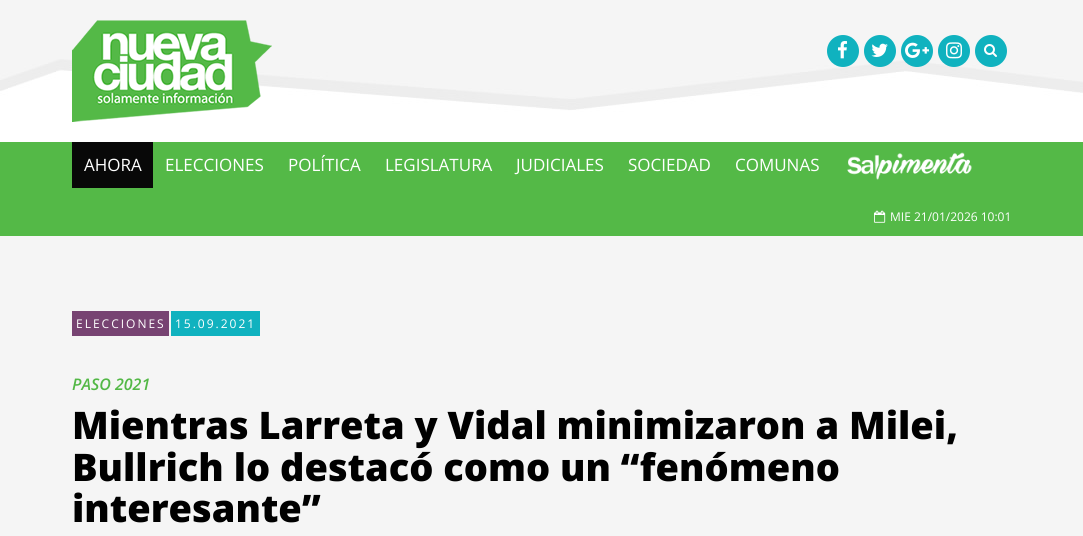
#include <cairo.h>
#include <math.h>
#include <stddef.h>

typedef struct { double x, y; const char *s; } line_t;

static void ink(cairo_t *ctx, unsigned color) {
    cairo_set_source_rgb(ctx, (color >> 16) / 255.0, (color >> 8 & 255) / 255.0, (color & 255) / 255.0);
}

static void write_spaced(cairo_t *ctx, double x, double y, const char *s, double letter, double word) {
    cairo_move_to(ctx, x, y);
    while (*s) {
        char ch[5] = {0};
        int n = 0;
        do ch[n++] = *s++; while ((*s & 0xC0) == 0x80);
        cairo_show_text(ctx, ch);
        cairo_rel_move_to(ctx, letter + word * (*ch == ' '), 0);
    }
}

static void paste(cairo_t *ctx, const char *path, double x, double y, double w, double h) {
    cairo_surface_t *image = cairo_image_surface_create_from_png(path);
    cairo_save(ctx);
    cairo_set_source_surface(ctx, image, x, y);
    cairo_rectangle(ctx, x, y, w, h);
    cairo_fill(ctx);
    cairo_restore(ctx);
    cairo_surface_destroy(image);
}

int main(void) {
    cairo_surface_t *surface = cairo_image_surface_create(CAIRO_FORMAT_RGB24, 1083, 536);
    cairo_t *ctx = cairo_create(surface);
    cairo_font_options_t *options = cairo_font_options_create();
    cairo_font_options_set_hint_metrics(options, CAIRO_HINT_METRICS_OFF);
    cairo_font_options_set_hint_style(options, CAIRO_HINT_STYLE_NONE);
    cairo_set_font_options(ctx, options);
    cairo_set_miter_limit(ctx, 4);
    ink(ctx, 0xF5F5F5);
    cairo_paint(ctx);
    paste(ctx, "media/1.png", 0, 59, 1083, 83);
    paste(ctx, "media/2.png", 72, 20, 200, 102);
    ink(ctx, 0x10B2BF);
    cairo_arc(ctx, 843, 51, 16, 0, 2 * M_PI);
    cairo_fill(ctx);
    paste(ctx, "media/3.png", 838, 41, 9, 18);
    cairo_arc(ctx, 880, 51, 16, 0, 2 * M_PI);
    cairo_fill(ctx);
    paste(ctx, "media/4.png", 871, 43, 17, 14);
    cairo_arc(ctx, 917, 51, 16, 0, 2 * M_PI);
    cairo_fill(ctx);
    paste(ctx, "media/5.png", 905, 42, 24, 16);
    cairo_arc(ctx, 954, 51, 16, 0, 2 * M_PI);
    cairo_fill(ctx);
    paste(ctx, "media/6.png", 946, 42, 16, 17);
    cairo_arc(ctx, 991, 51, 16, 0, 2 * M_PI);
    cairo_fill(ctx);
    paste(ctx, "media/7.png", 984, 44, 13, 13);
    ink(ctx, 0x54B947);
    cairo_rectangle(ctx, 0, 142, 1083, 94);
    cairo_fill(ctx);
    ink(ctx, 0x080808);
    cairo_rectangle(ctx, 72, 142, 81, 46);
    cairo_fill(ctx);
    cairo_select_font_face(ctx, "Open Sans", CAIRO_FONT_SLANT_NORMAL, CAIRO_FONT_WEIGHT_NORMAL);
    cairo_set_font_size(ctx, 17);
    ink(ctx, 0xFFFFFF);
    {
        static const line_t items[] = {
            {84, 171, "AHORA"},
            {165, 171, "ELECCIONES"},
            {288, 171, "POLÍTICA"},
            {385, 171, "LEGISLATURA"},
            {516, 171, "JUDICIALES"},
            {628, 171, "SOCIEDAD"},
            {735, 171, "COMUNAS"},
        };
        for (size_t i = 0; i < sizeof items / sizeof *items; i++) {
            cairo_move_to(ctx, items[i].x, items[i].y);
            cairo_show_text(ctx, items[i].s);
        }
    }
    paste(ctx, "media/8.png", 847, 152, 125, 28);
    paste(ctx, "media/9.png", 874, 210, 12, 13);
    cairo_set_font_size(ctx, 12);
    cairo_move_to(ctx, 890, 221);
    cairo_show_text(ctx, "MIE 21/01/2026 10:01");
    ink(ctx, 0x774372);
    cairo_rectangle(ctx, 72, 311, 97, 25);
    cairo_fill(ctx);
    ink(ctx, 0xFFFFFF);
    write_spaced(ctx, 76, 328, "ELECCIONES", 2, 0);
    ink(ctx, 0x10B2BF);
    cairo_rectangle(ctx, 171, 311, 89, 25);
    cairo_fill(ctx);
    ink(ctx, 0xFFFFFF);
    write_spaced(ctx, 175, 328, "15.09.2021", 2, 0);
    cairo_select_font_face(ctx, "Open Sans SemiBold", CAIRO_FONT_SLANT_ITALIC, CAIRO_FONT_WEIGHT_NORMAL);
    cairo_set_font_size(ctx, 16);
    ink(ctx, 0x53B846);
    cairo_move_to(ctx, 72, 390);
    cairo_show_text(ctx, "PASO 2021");
    cairo_select_font_face(ctx, "Open Sans ExtraBold", CAIRO_FONT_SLANT_NORMAL, CAIRO_FONT_WEIGHT_NORMAL);
    cairo_set_font_size(ctx, 38);
    ink(ctx, 0x000000);
    {
        static const line_t items[] = {
            {72, 439, "Mientras Larreta y Vidal minimizaron a Milei,"},
            {72, 481, "Bullrich lo destacó como un “fenómeno"},
            {72, 522, "interesante”"},
        };
        for (size_t i = 0; i < sizeof items / sizeof *items; i++) {
            cairo_move_to(ctx, items[i].x, items[i].y);
            cairo_show_text(ctx, items[i].s);
        }
    }
    cairo_surface_write_to_png(surface, "image.png");
    cairo_font_options_destroy(options);
    cairo_destroy(ctx);
    cairo_surface_destroy(surface);
    return 0;
}
